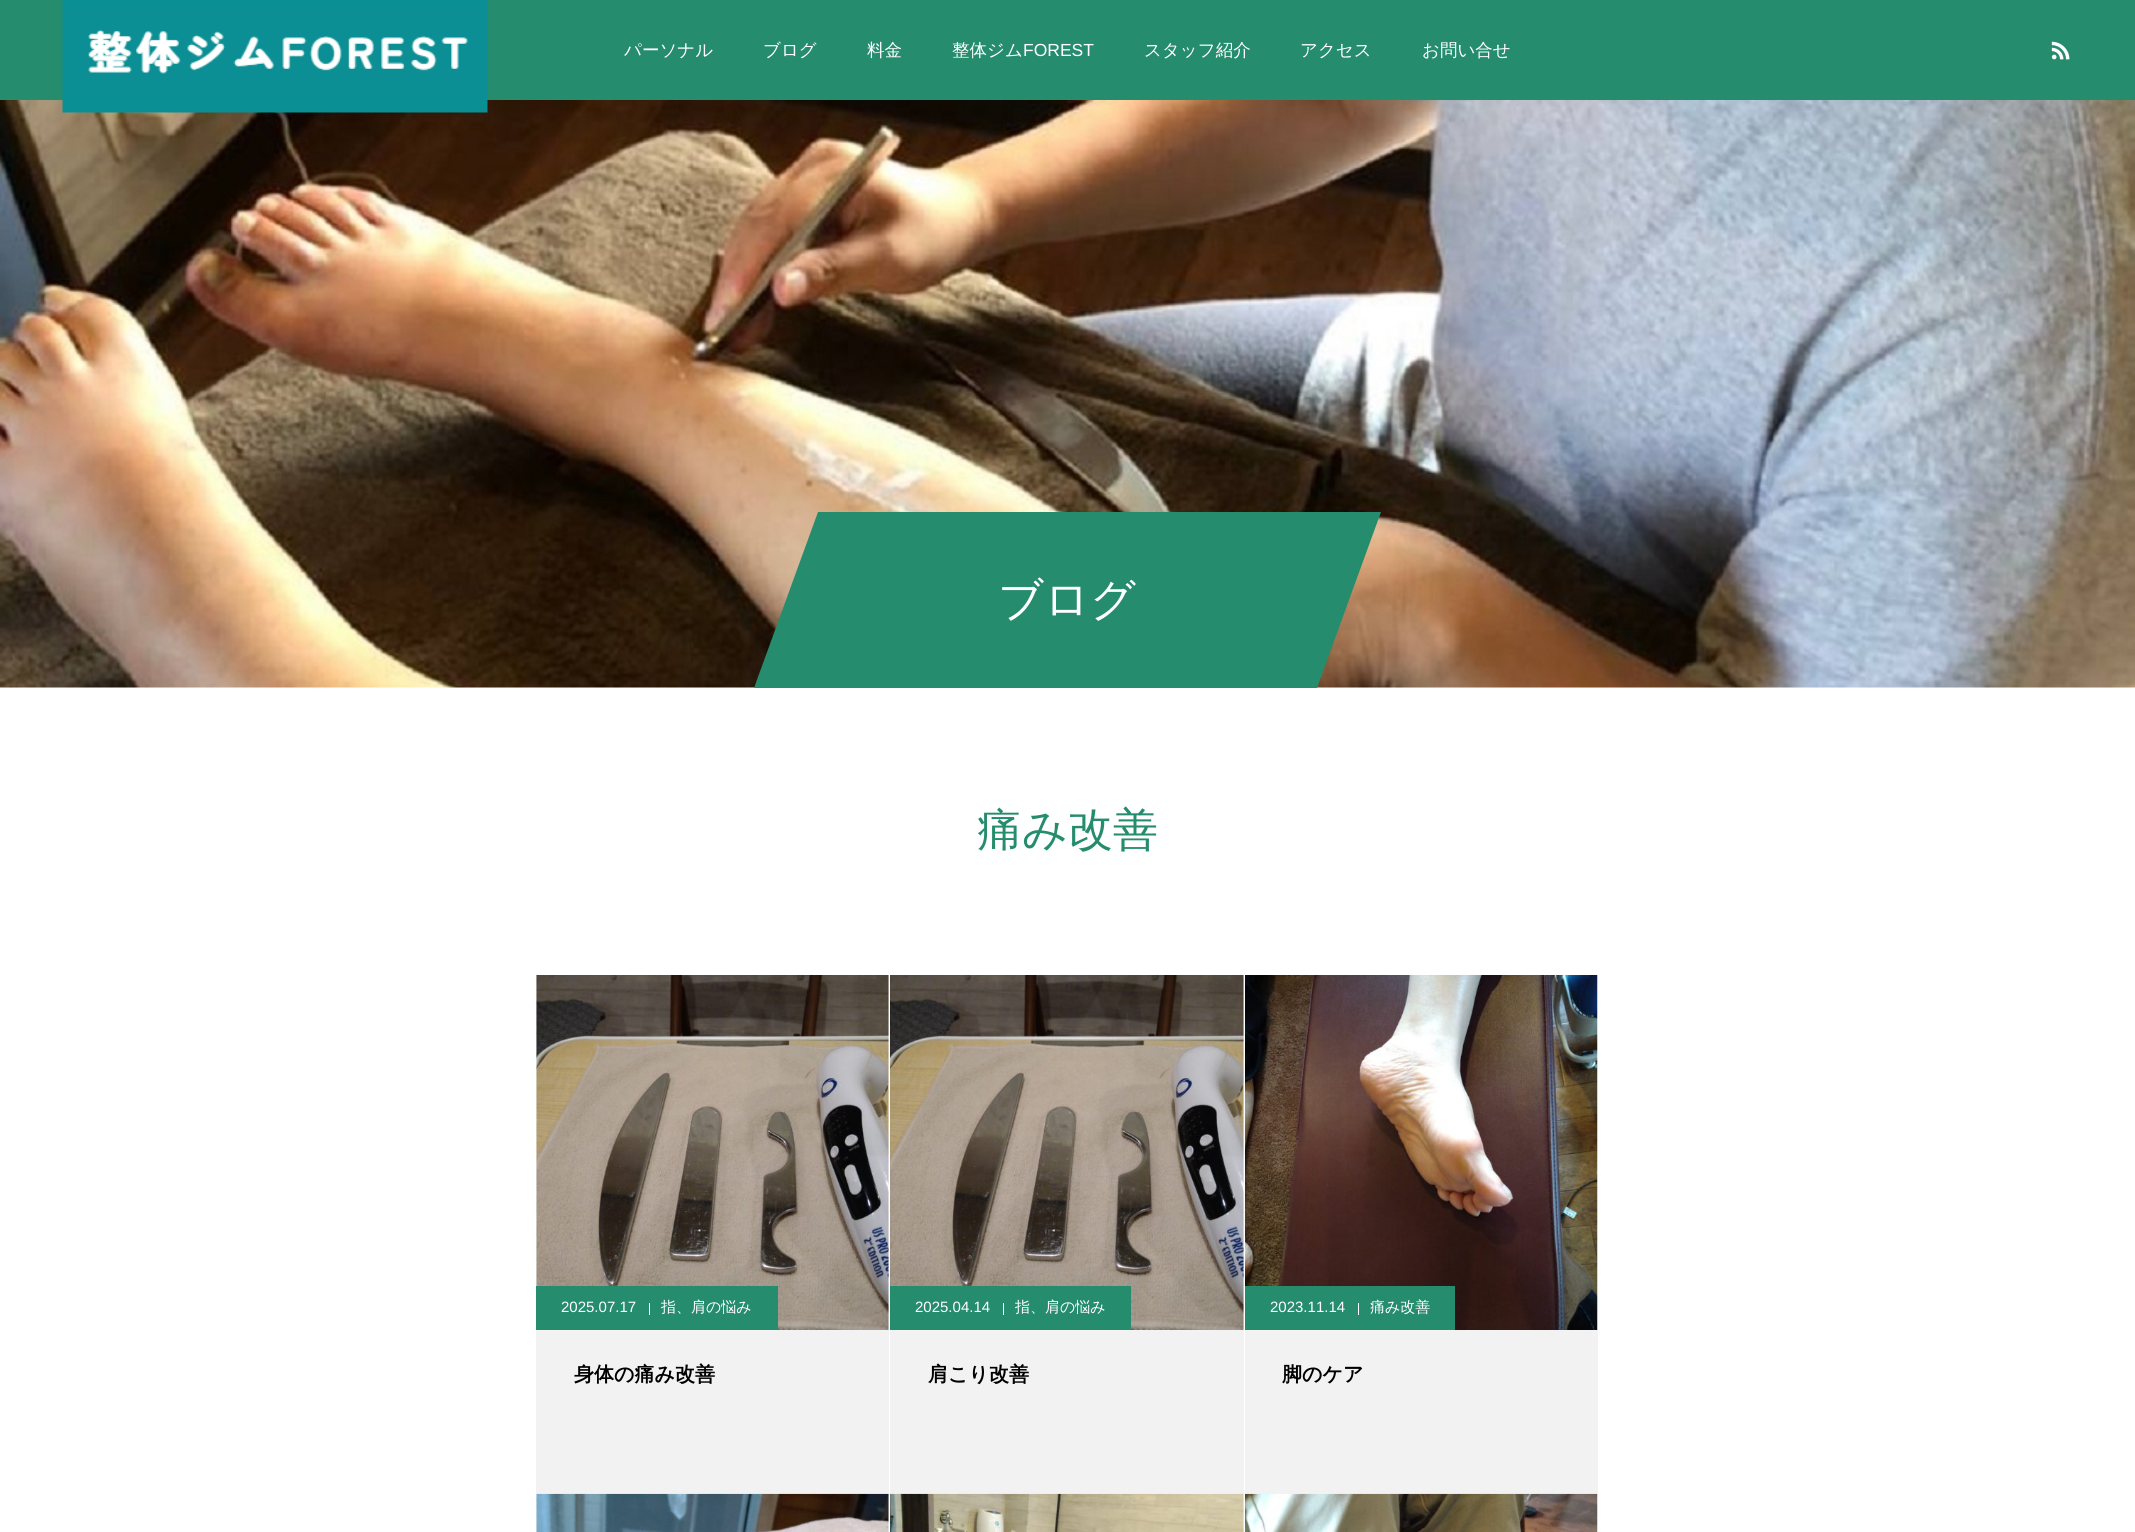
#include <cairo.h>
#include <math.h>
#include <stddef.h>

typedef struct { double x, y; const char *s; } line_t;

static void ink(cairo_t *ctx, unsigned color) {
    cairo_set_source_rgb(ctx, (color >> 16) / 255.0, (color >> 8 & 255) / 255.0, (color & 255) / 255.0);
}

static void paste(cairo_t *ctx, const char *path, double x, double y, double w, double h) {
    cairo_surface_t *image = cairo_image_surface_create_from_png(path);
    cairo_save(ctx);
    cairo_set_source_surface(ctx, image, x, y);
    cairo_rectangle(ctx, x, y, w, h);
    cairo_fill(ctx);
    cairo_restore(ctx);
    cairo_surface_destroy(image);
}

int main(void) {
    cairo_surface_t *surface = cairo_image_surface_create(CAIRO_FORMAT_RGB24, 2135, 1532);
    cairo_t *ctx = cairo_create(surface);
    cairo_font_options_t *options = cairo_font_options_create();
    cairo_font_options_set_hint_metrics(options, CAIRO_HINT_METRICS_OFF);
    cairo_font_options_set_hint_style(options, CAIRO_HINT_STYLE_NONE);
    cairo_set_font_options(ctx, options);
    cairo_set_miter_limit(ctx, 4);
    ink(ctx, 0xFFFFFF);
    cairo_paint(ctx);
    ink(ctx, 0x258C6D);
    cairo_rectangle(ctx, 0, 0, 2135, 100);
    cairo_fill(ctx);
    paste(ctx, "media/3.png", 0, 100, 2135, 588);
    paste(ctx, "media/1.png", 62, 0, 426, 113);
    cairo_select_font_face(ctx, "WenQuanYi Zen Hei Medium", CAIRO_FONT_SLANT_NORMAL, CAIRO_FONT_WEIGHT_NORMAL);
    cairo_set_font_size(ctx, 17.5);
    ink(ctx, 0xFFFFFF);
    {
        static const line_t items[] = {
            {624, 56, "パーソナル"},
            {763, 56, "ブログ"},
            {867, 56, "料金"},
            {952, 56, "整体ジム"},
        };
        for (size_t i = 0; i < sizeof items / sizeof *items; i++) {
            cairo_move_to(ctx, items[i].x, items[i].y);
            cairo_show_text(ctx, items[i].s);
        }
    }
    cairo_select_font_face(ctx, "Liberation Sans", CAIRO_FONT_SLANT_NORMAL, CAIRO_FONT_WEIGHT_NORMAL);
    cairo_move_to(ctx, 1023, 56);
    cairo_show_text(ctx, "FOREST");
    cairo_select_font_face(ctx, "WenQuanYi Zen Hei Medium", CAIRO_FONT_SLANT_NORMAL, CAIRO_FONT_WEIGHT_NORMAL);
    {
        static const line_t items[] = {
            {1144, 56, "スタッフ紹介"},
            {1300, 56, "アクセス"},
            {1422, 56, "お問い合せ"},
        };
        for (size_t i = 0; i < sizeof items / sizeof *items; i++) {
            cairo_move_to(ctx, items[i].x, items[i].y);
            cairo_show_text(ctx, items[i].s);
        }
    }
    paste(ctx, "media/2.png", 2051, 41, 19, 19);
    ink(ctx, 0x258C6D);
    cairo_new_path(ctx);
    cairo_move_to(ctx, 818, 512);
    cairo_line_to(ctx, 1381, 512);
    cairo_line_to(ctx, 1317, 688);
    cairo_line_to(ctx, 754, 688);
    cairo_close_path(ctx);
    cairo_fill(ctx);
    cairo_set_font_size(ctx, 45);
    ink(ctx, 0xFFFFFF);
    cairo_move_to(ctx, 998, 615);
    cairo_show_text(ctx, "ブログ");
    ink(ctx, 0x258C6D);
    cairo_move_to(ctx, 977, 845);
    cairo_show_text(ctx, "痛み改善");
    paste(ctx, "media/4.png", 536, 975, 353, 355);
    cairo_rectangle(ctx, 536, 1286, 242, 44);
    cairo_fill(ctx);
    cairo_select_font_face(ctx, "Liberation Sans", CAIRO_FONT_SLANT_NORMAL, CAIRO_FONT_WEIGHT_NORMAL);
    cairo_set_font_size(ctx, 15);
    ink(ctx, 0xFFFFFF);
    cairo_move_to(ctx, 561, 1312);
    cairo_show_text(ctx, "2025.07.17");
    cairo_rectangle(ctx, 649, 1303, 1, 12);
    cairo_fill(ctx);
    cairo_select_font_face(ctx, "WenQuanYi Zen Hei Medium", CAIRO_FONT_SLANT_NORMAL, CAIRO_FONT_WEIGHT_NORMAL);
    cairo_move_to(ctx, 661, 1312);
    cairo_show_text(ctx, "指、肩の悩み");
    ink(ctx, 0xF2F2F2);
    cairo_rectangle(ctx, 536, 1330, 353, 164);
    cairo_fill(ctx);
    cairo_select_font_face(ctx, "WenQuanYi Zen Hei", CAIRO_FONT_SLANT_NORMAL, CAIRO_FONT_WEIGHT_BOLD);
    cairo_set_font_size(ctx, 20);
    ink(ctx, 0x000000);
    cairo_move_to(ctx, 574, 1381);
    cairo_show_text(ctx, "身体の痛み改善");
    paste(ctx, "media/5.png", 890, 975, 354, 355);
    ink(ctx, 0x258C6D);
    cairo_rectangle(ctx, 890, 1286, 241, 44);
    cairo_fill(ctx);
    cairo_select_font_face(ctx, "Liberation Sans", CAIRO_FONT_SLANT_NORMAL, CAIRO_FONT_WEIGHT_NORMAL);
    cairo_set_font_size(ctx, 15);
    ink(ctx, 0xFFFFFF);
    cairo_move_to(ctx, 915, 1312);
    cairo_show_text(ctx, "2025.04.14");
    cairo_rectangle(ctx, 1003, 1303, 1, 12);
    cairo_fill(ctx);
    cairo_select_font_face(ctx, "WenQuanYi Zen Hei Medium", CAIRO_FONT_SLANT_NORMAL, CAIRO_FONT_WEIGHT_NORMAL);
    cairo_move_to(ctx, 1015, 1312);
    cairo_show_text(ctx, "指、肩の悩み");
    ink(ctx, 0xF2F2F2);
    cairo_rectangle(ctx, 890, 1330, 354, 164);
    cairo_fill(ctx);
    cairo_select_font_face(ctx, "WenQuanYi Zen Hei", CAIRO_FONT_SLANT_NORMAL, CAIRO_FONT_WEIGHT_BOLD);
    cairo_set_font_size(ctx, 20);
    ink(ctx, 0x000000);
    cairo_move_to(ctx, 928, 1381);
    cairo_show_text(ctx, "肩こり改善");
    paste(ctx, "media/6.png", 1245, 975, 353, 355);
    ink(ctx, 0x258C6D);
    cairo_rectangle(ctx, 1245, 1286, 210, 44);
    cairo_fill(ctx);
    cairo_select_font_face(ctx, "Liberation Sans", CAIRO_FONT_SLANT_NORMAL, CAIRO_FONT_WEIGHT_NORMAL);
    cairo_set_font_size(ctx, 15);
    ink(ctx, 0xFFFFFF);
    cairo_move_to(ctx, 1270, 1312);
    cairo_show_text(ctx, "2023.11.14");
    cairo_rectangle(ctx, 1358, 1303, 1, 12);
    cairo_fill(ctx);
    cairo_select_font_face(ctx, "WenQuanYi Zen Hei Medium", CAIRO_FONT_SLANT_NORMAL, CAIRO_FONT_WEIGHT_NORMAL);
    cairo_move_to(ctx, 1370, 1312);
    cairo_show_text(ctx, "痛み改善");
    ink(ctx, 0xF2F2F2);
    cairo_rectangle(ctx, 1245, 1330, 353, 164);
    cairo_fill(ctx);
    cairo_select_font_face(ctx, "WenQuanYi Zen Hei", CAIRO_FONT_SLANT_NORMAL, CAIRO_FONT_WEIGHT_BOLD);
    cairo_set_font_size(ctx, 20);
    ink(ctx, 0x000000);
    cairo_move_to(ctx, 1282, 1381);
    cairo_show_text(ctx, "脚のケア");
    paste(ctx, "media/7.png", 536, 1493, 353, 39);
    paste(ctx, "media/8.png", 890, 1493, 354, 39);
    paste(ctx, "media/9.png", 1245, 1493, 353, 39);
    cairo_surface_write_to_png(surface, "image.png");
    cairo_font_options_destroy(options);
    cairo_destroy(ctx);
    cairo_surface_destroy(surface);
    return 0;
}
